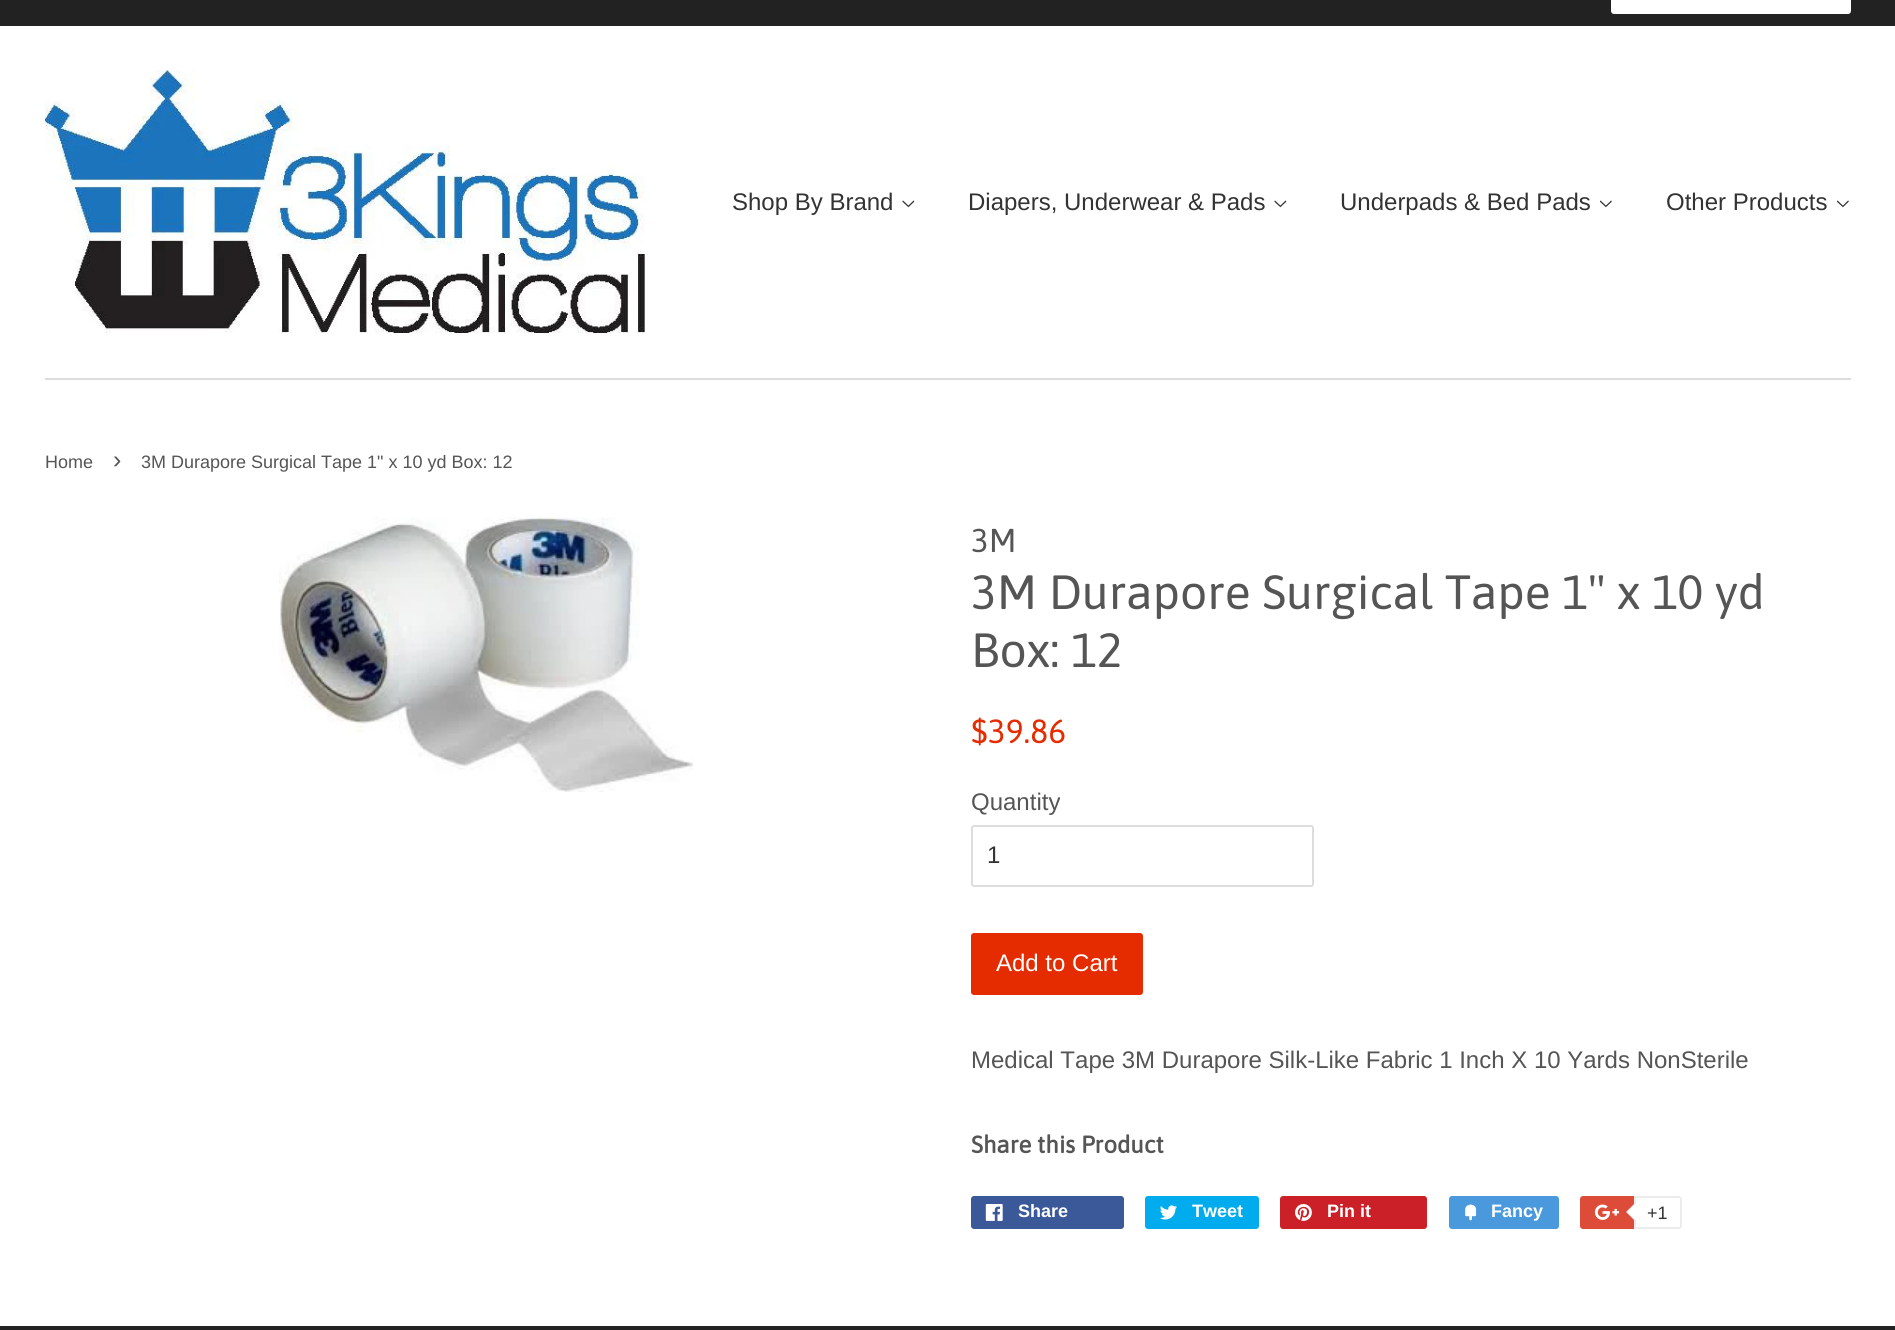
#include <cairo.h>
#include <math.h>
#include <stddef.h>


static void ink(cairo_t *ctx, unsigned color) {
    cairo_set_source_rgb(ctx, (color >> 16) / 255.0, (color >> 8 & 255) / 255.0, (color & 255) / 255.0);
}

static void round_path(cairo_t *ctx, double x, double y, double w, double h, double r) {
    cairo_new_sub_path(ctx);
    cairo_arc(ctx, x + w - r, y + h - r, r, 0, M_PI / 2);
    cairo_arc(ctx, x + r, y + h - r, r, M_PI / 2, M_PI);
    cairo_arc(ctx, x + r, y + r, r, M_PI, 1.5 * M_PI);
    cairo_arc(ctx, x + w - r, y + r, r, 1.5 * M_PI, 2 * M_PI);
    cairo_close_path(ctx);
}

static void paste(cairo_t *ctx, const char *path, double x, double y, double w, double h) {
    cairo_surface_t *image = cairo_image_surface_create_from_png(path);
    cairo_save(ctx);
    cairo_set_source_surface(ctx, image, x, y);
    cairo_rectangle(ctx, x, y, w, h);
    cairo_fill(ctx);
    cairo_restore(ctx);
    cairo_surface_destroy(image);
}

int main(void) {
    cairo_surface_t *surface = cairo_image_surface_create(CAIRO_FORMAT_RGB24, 1895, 1330);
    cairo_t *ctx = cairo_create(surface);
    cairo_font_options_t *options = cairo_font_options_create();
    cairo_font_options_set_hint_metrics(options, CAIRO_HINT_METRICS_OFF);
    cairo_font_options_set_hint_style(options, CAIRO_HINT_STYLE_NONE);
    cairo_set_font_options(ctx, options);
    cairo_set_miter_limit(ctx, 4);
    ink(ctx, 0xFFFFFF);
    cairo_paint(ctx);
    ink(ctx, 0x222222);
    cairo_rectangle(ctx, 0, 0, 1895, 26);
    cairo_fill(ctx);
    ink(ctx, 0xFFFFFF);
    round_path(ctx, 1611, -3, 240, 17, 3);
    cairo_fill(ctx);
    ink(ctx, 0xDDDDDD);
    cairo_rectangle(ctx, 45, 378, 1806, 2);
    cairo_fill(ctx);
    paste(ctx, "media/1.png", 45, 70, 600, 263);
    cairo_select_font_face(ctx, "Liberation Sans", CAIRO_FONT_SLANT_NORMAL, CAIRO_FONT_WEIGHT_NORMAL);
    cairo_set_font_size(ctx, 24);
    ink(ctx, 0x333333);
    cairo_move_to(ctx, 732, 210);
    cairo_show_text(ctx, "Shop By Brand");
    paste(ctx, "media/2.png", 902, 200, 13, 8);
    cairo_move_to(ctx, 968, 210);
    cairo_show_text(ctx, "Diapers, Underwear & Pads");
    paste(ctx, "media/2.png", 1274, 200, 13, 8);
    cairo_move_to(ctx, 1340, 210);
    cairo_show_text(ctx, "Underpads & Bed Pads");
    paste(ctx, "media/3.png", 1599, 200, 13, 8);
    cairo_move_to(ctx, 1666, 210);
    cairo_show_text(ctx, "Other Products");
    paste(ctx, "media/3.png", 1836, 200, 13, 8);
    cairo_set_font_size(ctx, 18);
    ink(ctx, 0x555555);
    cairo_move_to(ctx, 45, 468);
    cairo_show_text(ctx, "Home");
    cairo_set_font_size(ctx, 25);
    cairo_move_to(ctx, 113, 468);
    cairo_show_text(ctx, "›");
    cairo_set_font_size(ctx, 18);
    cairo_move_to(ctx, 141, 468);
    cairo_show_text(ctx, "3M Durapore Surgical Tape 1\" x 10 yd Box: 12");
    paste(ctx, "media/4.png", 279, 517, 414, 275);
    cairo_select_font_face(ctx, "Asap", CAIRO_FONT_SLANT_NORMAL, CAIRO_FONT_WEIGHT_NORMAL);
    cairo_set_font_size(ctx, 33);
    cairo_move_to(ctx, 971, 552);
    cairo_show_text(ctx, "3M");
    cairo_set_font_size(ctx, 48);
    cairo_move_to(ctx, 971, 609);
    cairo_show_text(ctx, "3M Durapore Surgical Tape 1\" x 10 yd");
    cairo_move_to(ctx, 971, 667);
    cairo_show_text(ctx, "Box: 12");
    cairo_set_font_size(ctx, 33.5);
    ink(ctx, 0xE42C00);
    cairo_move_to(ctx, 971, 743);
    cairo_show_text(ctx, "$39.86");
    cairo_select_font_face(ctx, "Liberation Sans", CAIRO_FONT_SLANT_NORMAL, CAIRO_FONT_WEIGHT_NORMAL);
    cairo_set_font_size(ctx, 24);
    ink(ctx, 0x555555);
    cairo_move_to(ctx, 971, 810);
    cairo_show_text(ctx, "Quantity");
    round_path(ctx, 972, 826, 341, 60, 2);
    ink(ctx, 0xDDDDDD);
    cairo_stroke(ctx);
    ink(ctx, 0x333333);
    cairo_move_to(ctx, 987, 863);
    cairo_show_text(ctx, "1");
    ink(ctx, 0xE42C00);
    round_path(ctx, 971, 933, 172, 62, 3);
    cairo_fill(ctx);
    ink(ctx, 0xFFFFFF);
    cairo_move_to(ctx, 996, 971);
    cairo_show_text(ctx, "Add to Cart");
    ink(ctx, 0x555555);
    cairo_move_to(ctx, 971, 1068);
    cairo_show_text(ctx, "Medical Tape 3M Durapore Silk-Like Fabric 1 Inch X 10 Yards NonSterile");
    cairo_select_font_face(ctx, "Asap", CAIRO_FONT_SLANT_NORMAL, CAIRO_FONT_WEIGHT_BOLD);
    cairo_move_to(ctx, 971, 1153);
    cairo_show_text(ctx, "Share this Product");
    ink(ctx, 0x3B5998);
    round_path(ctx, 971, 1196, 153, 33, 3);
    cairo_fill(ctx);
    paste(ctx, "media/5.png", 985, 1204, 18, 17);
    cairo_select_font_face(ctx, "Liberation Sans", CAIRO_FONT_SLANT_NORMAL, CAIRO_FONT_WEIGHT_BOLD);
    cairo_set_font_size(ctx, 18);
    ink(ctx, 0xFFFFFF);
    cairo_move_to(ctx, 1018, 1217);
    cairo_show_text(ctx, "Share");
    ink(ctx, 0x00ACED);
    round_path(ctx, 1145, 1196, 114, 33, 3);
    cairo_fill(ctx);
    paste(ctx, "media/6.png", 1160, 1205, 17, 15);
    ink(ctx, 0xFFFFFF);
    cairo_move_to(ctx, 1192, 1217);
    cairo_show_text(ctx, "Tweet");
    ink(ctx, 0xCB2027);
    round_path(ctx, 1280, 1196, 147, 33, 3);
    cairo_fill(ctx);
    paste(ctx, "media/7.png", 1295, 1204, 17, 17);
    ink(ctx, 0xFFFFFF);
    cairo_move_to(ctx, 1327, 1217);
    cairo_show_text(ctx, "Pin it");
    ink(ctx, 0x4999DC);
    round_path(ctx, 1449, 1196, 110, 33, 3);
    cairo_fill(ctx);
    paste(ctx, "media/8.png", 1465, 1204, 12, 17);
    ink(ctx, 0xFFFFFF);
    cairo_move_to(ctx, 1491, 1217);
    cairo_show_text(ctx, "Fancy");
    ink(ctx, 0xDD4B39);
    round_path(ctx, 1580, 1196, 99, 33, 3);
    cairo_fill(ctx);
    paste(ctx, "media/9.png", 1594, 1204, 25, 16);
    ink(ctx, 0xFFFFFF);
    cairo_new_path(ctx);
    cairo_move_to(ctx, 1635, 1197);
    cairo_line_to(ctx, 1679, 1197);
    cairo_curve_to(ctx, 1680, 1197, 1681, 1198, 1681, 1199);
    cairo_line_to(ctx, 1681, 1226);
    cairo_curve_to(ctx, 1681, 1227, 1680, 1228, 1679, 1228);
    cairo_line_to(ctx, 1635, 1228);
    cairo_close_path(ctx);
    cairo_fill_preserve(ctx);
    ink(ctx, 0xECECEC);
    cairo_stroke(ctx);
    cairo_new_path(ctx);
    cairo_move_to(ctx, 1635, 1203);
    cairo_line_to(ctx, 1635, 1221);
    cairo_line_to(ctx, 1626, 1212);
    cairo_close_path(ctx);
    cairo_fill(ctx);
    ink(ctx, 0xFFFFFF);
    cairo_new_path(ctx);
    cairo_move_to(ctx, 1636.5, 1203);
    cairo_line_to(ctx, 1636.5, 1221);
    cairo_line_to(ctx, 1627.5, 1212);
    cairo_close_path(ctx);
    cairo_fill(ctx);
    cairo_select_font_face(ctx, "Liberation Sans", CAIRO_FONT_SLANT_NORMAL, CAIRO_FONT_WEIGHT_NORMAL);
    ink(ctx, 0x333333);
    cairo_move_to(ctx, 1647, 1219);
    cairo_show_text(ctx, "+1");
    ink(ctx, 0x222222);
    cairo_rectangle(ctx, 0, 1326, 1895, 4);
    cairo_fill(ctx);
    cairo_surface_write_to_png(surface, "image.png");
    cairo_font_options_destroy(options);
    cairo_destroy(ctx);
    cairo_surface_destroy(surface);
    return 0;
}
